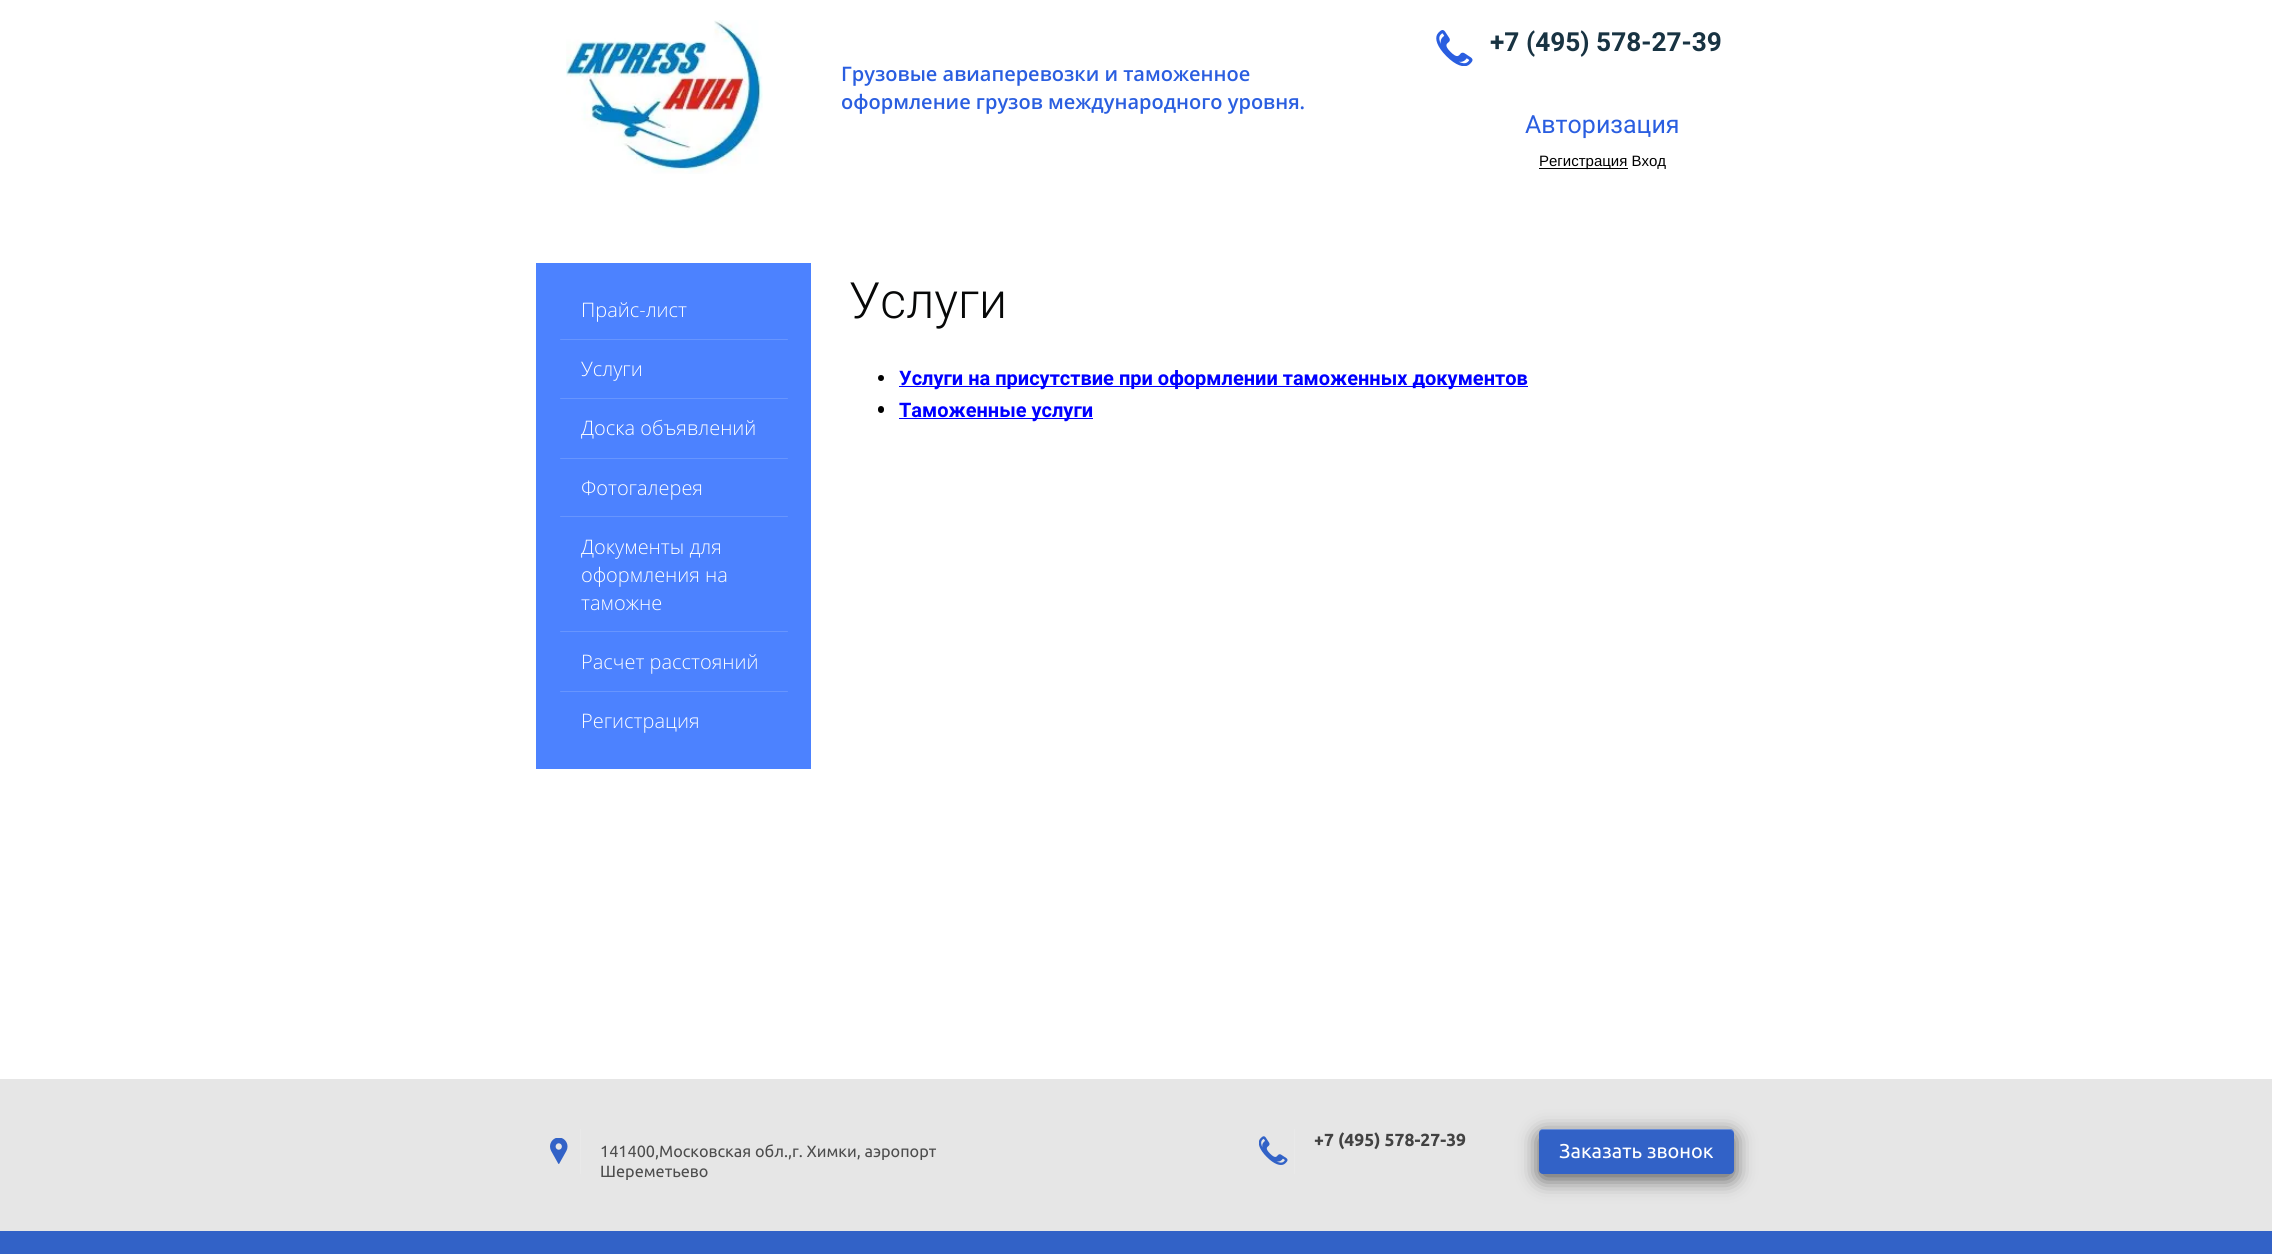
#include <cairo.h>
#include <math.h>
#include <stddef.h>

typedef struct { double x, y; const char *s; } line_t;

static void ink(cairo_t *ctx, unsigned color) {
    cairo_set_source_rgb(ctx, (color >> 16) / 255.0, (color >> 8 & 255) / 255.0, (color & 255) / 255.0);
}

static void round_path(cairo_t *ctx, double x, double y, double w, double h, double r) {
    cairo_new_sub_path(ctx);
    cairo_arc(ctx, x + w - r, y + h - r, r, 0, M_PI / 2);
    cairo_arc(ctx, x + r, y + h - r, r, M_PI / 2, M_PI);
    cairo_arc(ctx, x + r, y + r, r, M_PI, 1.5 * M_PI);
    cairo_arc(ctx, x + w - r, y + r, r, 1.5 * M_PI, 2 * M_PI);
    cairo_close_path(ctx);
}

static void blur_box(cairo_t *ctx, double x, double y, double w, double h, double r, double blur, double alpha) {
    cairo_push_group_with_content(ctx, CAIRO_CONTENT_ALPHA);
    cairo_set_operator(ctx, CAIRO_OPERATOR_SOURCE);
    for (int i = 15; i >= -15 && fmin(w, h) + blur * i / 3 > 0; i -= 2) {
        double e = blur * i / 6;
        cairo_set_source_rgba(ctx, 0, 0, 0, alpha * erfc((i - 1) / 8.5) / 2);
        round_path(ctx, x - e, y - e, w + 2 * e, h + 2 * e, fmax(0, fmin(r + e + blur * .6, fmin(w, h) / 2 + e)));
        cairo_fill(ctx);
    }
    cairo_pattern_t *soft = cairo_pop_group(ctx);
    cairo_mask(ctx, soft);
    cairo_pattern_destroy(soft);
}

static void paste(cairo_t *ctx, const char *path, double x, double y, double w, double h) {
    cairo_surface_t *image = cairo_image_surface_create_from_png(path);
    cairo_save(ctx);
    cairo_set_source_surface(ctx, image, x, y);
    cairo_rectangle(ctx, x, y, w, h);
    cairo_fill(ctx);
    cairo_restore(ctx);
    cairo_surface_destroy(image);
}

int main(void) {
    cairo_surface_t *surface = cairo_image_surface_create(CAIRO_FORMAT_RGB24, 2272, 1254);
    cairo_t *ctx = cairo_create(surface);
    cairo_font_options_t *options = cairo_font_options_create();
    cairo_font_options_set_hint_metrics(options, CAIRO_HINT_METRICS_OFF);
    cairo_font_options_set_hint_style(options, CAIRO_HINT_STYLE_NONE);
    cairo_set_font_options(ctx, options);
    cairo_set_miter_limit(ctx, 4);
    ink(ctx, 0xFFFFFF);
    cairo_paint(ctx);
    paste(ctx, "media/1.png", 566, 20, 197, 154);
    paste(ctx, "media/2.png", 1436, 30, 37, 36);
    cairo_select_font_face(ctx, "Roboto", CAIRO_FONT_SLANT_NORMAL, CAIRO_FONT_WEIGHT_BOLD);
    cairo_set_font_size(ctx, 26.25);
    ink(ctx, 0x183342);
    cairo_move_to(ctx, 1490, 51);
    cairo_show_text(ctx, "+7 (495) 578-27-39");
    cairo_select_font_face(ctx, "Open Sans SemiBold", CAIRO_FONT_SLANT_NORMAL, CAIRO_FONT_WEIGHT_NORMAL);
    cairo_set_font_size(ctx, 20);
    ink(ctx, 0x2A5EE0);
    cairo_move_to(ctx, 841, 81);
    cairo_show_text(ctx, "Грузовые авиаперевозки и таможенное");
    cairo_move_to(ctx, 841, 109);
    cairo_show_text(ctx, "оформление грузов международного уровня.");
    cairo_select_font_face(ctx, "Roboto", CAIRO_FONT_SLANT_NORMAL, CAIRO_FONT_WEIGHT_NORMAL);
    cairo_set_font_size(ctx, 25);
    cairo_move_to(ctx, 1525, 133);
    cairo_show_text(ctx, "Авторизация");
    ink(ctx, 0x000000);
    cairo_rectangle(ctx, 1539, 168, 89, 1);
    cairo_fill(ctx);
    cairo_select_font_face(ctx, "Liberation Sans", CAIRO_FONT_SLANT_NORMAL, CAIRO_FONT_WEIGHT_NORMAL);
    cairo_set_font_size(ctx, 15);
    cairo_move_to(ctx, 1539, 166);
    cairo_show_text(ctx, "Регистрация Вход");
    ink(ctx, 0x4C82FF);
    cairo_rectangle(ctx, 536, 263, 275, 506);
    cairo_fill(ctx);
    cairo_select_font_face(ctx, "Open Sans Light", CAIRO_FONT_SLANT_NORMAL, CAIRO_FONT_WEIGHT_NORMAL);
    cairo_set_font_size(ctx, 20);
    ink(ctx, 0xFFFFFF);
    cairo_move_to(ctx, 581, 317);
    cairo_show_text(ctx, "Прайс-лист");
    ink(ctx, 0x6795FF);
    round_path(ctx, 560, 339, 228, 1, 0.5);
    cairo_fill(ctx);
    ink(ctx, 0xFFFFFF);
    cairo_move_to(ctx, 581, 376);
    cairo_show_text(ctx, "Услуги");
    ink(ctx, 0x6795FF);
    round_path(ctx, 560, 398, 228, 1, 0.5);
    cairo_fill(ctx);
    ink(ctx, 0xFFFFFF);
    cairo_move_to(ctx, 581, 435);
    cairo_show_text(ctx, "Доска объявлений");
    ink(ctx, 0x6795FF);
    round_path(ctx, 560, 458, 228, 1, 0.5);
    cairo_fill(ctx);
    ink(ctx, 0xFFFFFF);
    cairo_move_to(ctx, 581, 495);
    cairo_show_text(ctx, "Фотогалерея");
    ink(ctx, 0x6795FF);
    round_path(ctx, 560, 516, 228, 1, 0.5);
    cairo_fill(ctx);
    ink(ctx, 0xFFFFFF);
    {
        static const line_t items[] = {
            {581, 554, "Документы для"},
            {581, 582, "оформления на"},
            {581, 610, "таможне"},
        };
        for (size_t i = 0; i < sizeof items / sizeof *items; i++) {
            cairo_move_to(ctx, items[i].x, items[i].y);
            cairo_show_text(ctx, items[i].s);
        }
    }
    ink(ctx, 0x6795FF);
    round_path(ctx, 560, 631, 228, 1, 0.5);
    cairo_fill(ctx);
    ink(ctx, 0xFFFFFF);
    cairo_move_to(ctx, 581, 669);
    cairo_show_text(ctx, "Расчет расстояний");
    ink(ctx, 0x6795FF);
    round_path(ctx, 560, 691, 228, 1, 0.5);
    cairo_fill(ctx);
    ink(ctx, 0xFFFFFF);
    cairo_move_to(ctx, 581, 728);
    cairo_show_text(ctx, "Регистрация");
    cairo_select_font_face(ctx, "Roboto Light", CAIRO_FONT_SLANT_NORMAL, CAIRO_FONT_WEIGHT_NORMAL);
    cairo_set_font_size(ctx, 50);
    ink(ctx, 0x070808);
    cairo_move_to(ctx, 849, 318);
    cairo_show_text(ctx, "Услуги");
    ink(ctx, 0x000000);
    cairo_new_path(ctx);
    cairo_arc(ctx, 881, 378, 3, 0, 2 * M_PI);
    cairo_fill(ctx);
    ink(ctx, 0x0000FF);
    cairo_rectangle(ctx, 899, 386, 629, 1);
    cairo_fill(ctx);
    cairo_select_font_face(ctx, "Roboto", CAIRO_FONT_SLANT_NORMAL, CAIRO_FONT_WEIGHT_BOLD);
    cairo_set_font_size(ctx, 20);
    cairo_move_to(ctx, 899, 385);
    cairo_show_text(ctx, "Услуги на присутствие при оформлении таможенных документов");
    ink(ctx, 0x000000);
    round_path(ctx, 878, 406, 6, 7, 3);
    cairo_fill(ctx);
    ink(ctx, 0x0000FF);
    cairo_rectangle(ctx, 899, 418, 194, 1);
    cairo_fill(ctx);
    cairo_move_to(ctx, 899, 417);
    cairo_show_text(ctx, "Таможенные услуги");
    ink(ctx, 0xE6E6E6);
    cairo_rectangle(ctx, 0, 1079, 2272, 152);
    cairo_fill(ctx);
    paste(ctx, "media/3.png", 550, 1138, 18, 26);
    ink(ctx, 0xE9E9E9);
    cairo_rectangle(ctx, 580, 1129, 1, 45);
    cairo_fill(ctx);
    cairo_select_font_face(ctx, "Ubuntu", CAIRO_FONT_SLANT_NORMAL, CAIRO_FONT_WEIGHT_NORMAL);
    cairo_set_font_size(ctx, 16.25);
    ink(ctx, 0x4D4D4D);
    cairo_move_to(ctx, 600, 1157);
    cairo_show_text(ctx, "141400,Московская обл.,г. Химки, аэропорт");
    cairo_move_to(ctx, 600, 1177);
    cairo_show_text(ctx, "Шереметьево");
    paste(ctx, "media/4.png", 1259, 1136, 29, 29);
    ink(ctx, 0xE9E9E9);
    cairo_rectangle(ctx, 1294, 1129, 1, 45);
    cairo_fill(ctx);
    cairo_select_font_face(ctx, "Ubuntu", CAIRO_FONT_SLANT_NORMAL, CAIRO_FONT_WEIGHT_BOLD);
    cairo_set_font_size(ctx, 17.5);
    ink(ctx, 0x424242);
    cairo_move_to(ctx, 1314, 1146);
    cairo_show_text(ctx, "+7 (495) 578-27-39");
    ink(ctx, 0x000000);
    blur_box(ctx, 1539, 1134, 195, 45, 4, 10, 0.62);
    ink(ctx, 0x3262C7);
    round_path(ctx, 1539, 1129, 195, 45, 4);
    cairo_fill(ctx);
    cairo_set_source_rgba(ctx, 1, 1, 1, 0.28);
    cairo_new_path(ctx);
    cairo_move_to(ctx, 1542, 1130);
    cairo_line_to(ctx, 1730, 1130);
    cairo_curve_to(ctx, 1732, 1130, 1734, 1132, 1734, 1134);
    cairo_line_to(ctx, 1734, 1133);
    cairo_curve_to(ctx, 1734, 1131, 1732, 1129, 1730, 1129);
    cairo_line_to(ctx, 1543, 1129);
    cairo_curve_to(ctx, 1541, 1129, 1539, 1131, 1539, 1133);
    cairo_line_to(ctx, 1539, 1134);
    cairo_curve_to(ctx, 1539, 1132, 1540, 1130, 1542, 1130);
    cairo_close_path(ctx);
    cairo_fill(ctx);
    cairo_select_font_face(ctx, "Ubuntu", CAIRO_FONT_SLANT_NORMAL, CAIRO_FONT_WEIGHT_NORMAL);
    cairo_set_font_size(ctx, 20);
    ink(ctx, 0xFFFFFF);
    cairo_move_to(ctx, 1559, 1158);
    cairo_show_text(ctx, "Заказать звонок");
    ink(ctx, 0x3262C7);
    cairo_rectangle(ctx, 0, 1231, 2272, 23);
    cairo_fill(ctx);
    cairo_surface_write_to_png(surface, "image.png");
    cairo_font_options_destroy(options);
    cairo_destroy(ctx);
    cairo_surface_destroy(surface);
    return 0;
}
